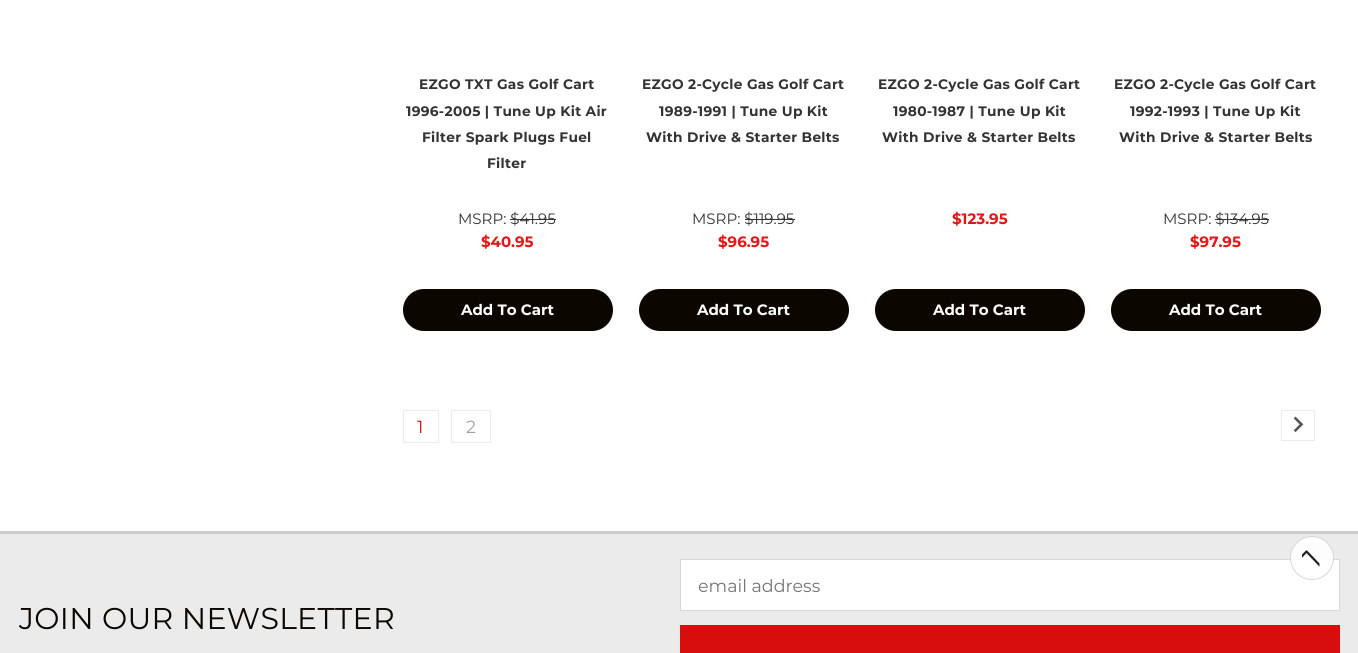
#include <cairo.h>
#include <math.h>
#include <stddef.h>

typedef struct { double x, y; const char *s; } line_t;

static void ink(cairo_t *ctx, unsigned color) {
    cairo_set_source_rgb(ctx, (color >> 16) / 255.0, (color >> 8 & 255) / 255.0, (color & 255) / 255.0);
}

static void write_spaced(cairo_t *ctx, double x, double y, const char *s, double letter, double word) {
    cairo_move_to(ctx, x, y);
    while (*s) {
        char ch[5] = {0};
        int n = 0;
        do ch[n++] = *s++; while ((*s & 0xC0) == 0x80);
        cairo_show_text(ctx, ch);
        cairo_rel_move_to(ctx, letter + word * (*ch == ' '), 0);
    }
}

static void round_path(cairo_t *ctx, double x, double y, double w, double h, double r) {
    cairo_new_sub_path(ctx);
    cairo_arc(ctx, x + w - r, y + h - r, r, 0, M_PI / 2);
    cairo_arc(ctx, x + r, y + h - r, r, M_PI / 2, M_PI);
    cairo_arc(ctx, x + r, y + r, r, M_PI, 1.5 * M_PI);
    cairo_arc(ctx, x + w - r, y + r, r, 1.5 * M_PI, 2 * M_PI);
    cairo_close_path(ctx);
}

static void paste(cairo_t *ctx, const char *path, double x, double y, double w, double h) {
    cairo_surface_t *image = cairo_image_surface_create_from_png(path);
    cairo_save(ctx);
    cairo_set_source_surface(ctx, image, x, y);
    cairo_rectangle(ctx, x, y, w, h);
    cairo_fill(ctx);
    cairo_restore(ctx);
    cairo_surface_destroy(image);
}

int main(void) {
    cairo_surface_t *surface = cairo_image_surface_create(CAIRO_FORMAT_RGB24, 1358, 653);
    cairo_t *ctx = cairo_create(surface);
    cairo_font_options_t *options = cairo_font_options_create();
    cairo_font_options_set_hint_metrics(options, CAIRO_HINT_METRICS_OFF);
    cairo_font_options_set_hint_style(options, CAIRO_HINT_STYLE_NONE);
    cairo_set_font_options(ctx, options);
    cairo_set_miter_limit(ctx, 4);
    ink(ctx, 0xFFFFFF);
    cairo_paint(ctx);
    cairo_select_font_face(ctx, "Montserrat", CAIRO_FONT_SLANT_NORMAL, CAIRO_FONT_WEIGHT_BOLD);
    cairo_set_font_size(ctx, 13.75);
    ink(ctx, 0x333333);
    {
        static const line_t items[] = {
            {419, 89, "EZGO TXT Gas Golf Cart"},
            {406, 116, "1996-2005 | Tune Up Kit Air"},
            {422, 142, "Filter Spark Plugs Fuel"},
            {487, 168, "Filter"},
        };
        for (size_t i = 0; i < sizeof items / sizeof *items; i++) {
            write_spaced(ctx, items[i].x, items[i].y, items[i].s, 0.3, 0);
        }
    }
    cairo_select_font_face(ctx, "Montserrat", CAIRO_FONT_SLANT_NORMAL, CAIRO_FONT_WEIGHT_NORMAL);
    cairo_set_font_size(ctx, 15);
    cairo_move_to(ctx, 458, 224);
    cairo_show_text(ctx, "MSRP: $41.95");
    cairo_rectangle(ctx, 510, 219, 46, 1);
    cairo_fill(ctx);
    cairo_select_font_face(ctx, "Montserrat", CAIRO_FONT_SLANT_NORMAL, CAIRO_FONT_WEIGHT_BOLD);
    ink(ctx, 0xE21716);
    cairo_move_to(ctx, 481, 247);
    cairo_show_text(ctx, "$40.95");
    ink(ctx, 0x0C0600);
    round_path(ctx, 403, 289, 210, 42, 21);
    cairo_fill(ctx);
    ink(ctx, 0xFFFFFF);
    cairo_move_to(ctx, 461, 315);
    cairo_show_text(ctx, "Add To Cart");
    cairo_set_font_size(ctx, 13.75);
    ink(ctx, 0x333333);
    {
        static const line_t items[] = {
            {642, 89, "EZGO 2-Cycle Gas Golf Cart"},
            {659, 116, "1989-1991 | Tune Up Kit"},
            {646, 142, "With Drive & Starter Belts"},
        };
        for (size_t i = 0; i < sizeof items / sizeof *items; i++) {
            write_spaced(ctx, items[i].x, items[i].y, items[i].s, 0.3, 0);
        }
    }
    cairo_select_font_face(ctx, "Montserrat", CAIRO_FONT_SLANT_NORMAL, CAIRO_FONT_WEIGHT_NORMAL);
    cairo_set_font_size(ctx, 15);
    cairo_move_to(ctx, 692, 224);
    cairo_show_text(ctx, "MSRP: $119.95");
    cairo_rectangle(ctx, 745, 219, 50, 1);
    cairo_fill(ctx);
    cairo_select_font_face(ctx, "Montserrat", CAIRO_FONT_SLANT_NORMAL, CAIRO_FONT_WEIGHT_BOLD);
    ink(ctx, 0xE21716);
    cairo_move_to(ctx, 718, 247);
    cairo_show_text(ctx, "$96.95");
    ink(ctx, 0x0C0600);
    round_path(ctx, 639, 289, 210, 42, 21);
    cairo_fill(ctx);
    ink(ctx, 0xFFFFFF);
    cairo_move_to(ctx, 697, 315);
    cairo_show_text(ctx, "Add To Cart");
    cairo_set_font_size(ctx, 13.75);
    ink(ctx, 0x333333);
    {
        static const line_t items[] = {
            {878, 89, "EZGO 2-Cycle Gas Golf Cart"},
            {893, 116, "1980-1987 | Tune Up Kit"},
            {882, 142, "With Drive & Starter Belts"},
        };
        for (size_t i = 0; i < sizeof items / sizeof *items; i++) {
            write_spaced(ctx, items[i].x, items[i].y, items[i].s, 0.3, 0);
        }
    }
    cairo_set_font_size(ctx, 15);
    ink(ctx, 0xE21716);
    cairo_move_to(ctx, 952, 224);
    cairo_show_text(ctx, "$123.95");
    ink(ctx, 0x0C0600);
    round_path(ctx, 875, 289, 210, 42, 21);
    cairo_fill(ctx);
    ink(ctx, 0xFFFFFF);
    cairo_move_to(ctx, 933, 315);
    cairo_show_text(ctx, "Add To Cart");
    cairo_set_font_size(ctx, 13.75);
    ink(ctx, 0x333333);
    {
        static const line_t items[] = {
            {1114, 89, "EZGO 2-Cycle Gas Golf Cart"},
            {1130, 116, "1992-1993 | Tune Up Kit"},
            {1119, 142, "With Drive & Starter Belts"},
        };
        for (size_t i = 0; i < sizeof items / sizeof *items; i++) {
            write_spaced(ctx, items[i].x, items[i].y, items[i].s, 0.3, 0);
        }
    }
    cairo_select_font_face(ctx, "Montserrat", CAIRO_FONT_SLANT_NORMAL, CAIRO_FONT_WEIGHT_NORMAL);
    cairo_set_font_size(ctx, 15);
    cairo_move_to(ctx, 1163, 224);
    cairo_show_text(ctx, "MSRP: $134.95");
    cairo_rectangle(ctx, 1215, 219, 54, 1);
    cairo_fill(ctx);
    cairo_select_font_face(ctx, "Montserrat", CAIRO_FONT_SLANT_NORMAL, CAIRO_FONT_WEIGHT_BOLD);
    ink(ctx, 0xE21716);
    cairo_move_to(ctx, 1190, 247);
    cairo_show_text(ctx, "$97.95");
    ink(ctx, 0x0C0600);
    round_path(ctx, 1111, 289, 210, 42, 21);
    cairo_fill(ctx);
    ink(ctx, 0xFFFFFF);
    cairo_move_to(ctx, 1169, 315);
    cairo_show_text(ctx, "Add To Cart");
    cairo_rectangle(ctx, 403.5, 410.5, 35, 32);
    ink(ctx, 0xEBEBEB);
    cairo_set_line_width(ctx, 1);
    cairo_stroke(ctx);
    cairo_select_font_face(ctx, "Montserrat", CAIRO_FONT_SLANT_NORMAL, CAIRO_FONT_WEIGHT_NORMAL);
    cairo_set_font_size(ctx, 17.5);
    ink(ctx, 0xD80D0D);
    cairo_move_to(ctx, 417, 433);
    cairo_show_text(ctx, "1");
    cairo_rectangle(ctx, 451.5, 410.5, 39, 32);
    ink(ctx, 0xEBEBEB);
    cairo_stroke(ctx);
    ink(ctx, 0xA2A2A2);
    cairo_move_to(ctx, 466, 433);
    cairo_show_text(ctx, "2");
    cairo_rectangle(ctx, 1281.5, 410.5, 33, 30);
    ink(ctx, 0xEBEBEB);
    cairo_stroke(ctx);
    paste(ctx, "media/1.png", 1293, 416, 11, 17);
    cairo_rectangle(ctx, 0, 534, 1358, 119);
    cairo_fill(ctx);
    ink(ctx, 0xFFFFFF);
    cairo_rectangle(ctx, 680.5, 559.5, 659, 51);
    cairo_fill_preserve(ctx);
    ink(ctx, 0xD7D7D7);
    cairo_stroke(ctx);
    cairo_set_source_rgba(ctx, 1, 1, 1, 0.9);
    cairo_arc(ctx, 1312, 558, 21.5, 0, 2 * M_PI);
    cairo_fill_preserve(ctx);
    ink(ctx, 0xD7D7D7);
    cairo_stroke(ctx);
    cairo_save(ctx);
    cairo_new_path(ctx);
    cairo_move_to(ctx, 1319.5, 549.5);
    cairo_line_to(ctx, 1319.5, 567);
    cairo_line_to(ctx, 1302, 567);
    cairo_line_to(ctx, 1302, 549.5);
    cairo_close_path(ctx);
    cairo_clip(ctx);
    cairo_new_path(ctx);
    cairo_move_to(ctx, 1328.5, 574.5);
    cairo_line_to(ctx, 1306.5, 551.5);
    cairo_line_to(ctx, 1284.5, 574.5);
    ink(ctx, 0x1F1F1F);
    cairo_set_line_width(ctx, 2.2);
    cairo_set_line_cap(ctx, CAIRO_LINE_CAP_ROUND);
    cairo_set_line_join(ctx, CAIRO_LINE_JOIN_ROUND);
    cairo_stroke(ctx);
    cairo_restore(ctx);
    ink(ctx, 0xCDCCCC);
    cairo_rectangle(ctx, 0, 531, 1358, 3);
    cairo_fill(ctx);
    ink(ctx, 0x757575);
    cairo_move_to(ctx, 698, 592);
    cairo_show_text(ctx, "email address");
    ink(ctx, 0xD80D0D);
    cairo_rectangle(ctx, 680, 625, 660, 28);
    cairo_fill(ctx);
    cairo_set_font_size(ctx, 30);
    ink(ctx, 0x0C0600);
    write_spaced(ctx, 19, 629, "JOIN OUR NEWSLETTER", 0.3, 0);
    cairo_surface_write_to_png(surface, "image.png");
    cairo_font_options_destroy(options);
    cairo_destroy(ctx);
    cairo_surface_destroy(surface);
    return 0;
}
